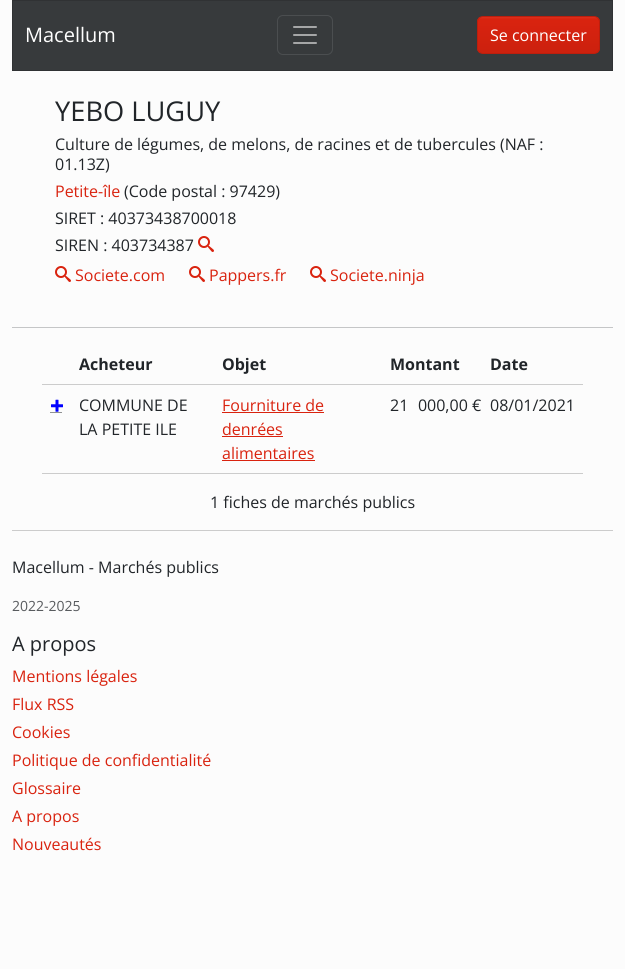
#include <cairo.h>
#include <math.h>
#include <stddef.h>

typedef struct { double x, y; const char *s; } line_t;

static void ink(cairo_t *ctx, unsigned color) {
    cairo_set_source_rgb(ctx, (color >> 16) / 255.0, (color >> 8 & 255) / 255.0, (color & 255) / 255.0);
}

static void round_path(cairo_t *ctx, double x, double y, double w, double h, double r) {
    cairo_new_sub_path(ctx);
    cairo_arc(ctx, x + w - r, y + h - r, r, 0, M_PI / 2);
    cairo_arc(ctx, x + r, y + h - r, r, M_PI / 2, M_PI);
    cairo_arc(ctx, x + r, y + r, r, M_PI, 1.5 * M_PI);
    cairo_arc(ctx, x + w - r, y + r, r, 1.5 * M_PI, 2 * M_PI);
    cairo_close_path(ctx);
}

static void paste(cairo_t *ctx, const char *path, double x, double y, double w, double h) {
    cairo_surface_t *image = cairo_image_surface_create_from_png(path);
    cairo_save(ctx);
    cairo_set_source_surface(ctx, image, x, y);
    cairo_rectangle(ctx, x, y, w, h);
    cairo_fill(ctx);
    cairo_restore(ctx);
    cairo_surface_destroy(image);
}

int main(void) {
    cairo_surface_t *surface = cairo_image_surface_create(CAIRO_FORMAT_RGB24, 625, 969);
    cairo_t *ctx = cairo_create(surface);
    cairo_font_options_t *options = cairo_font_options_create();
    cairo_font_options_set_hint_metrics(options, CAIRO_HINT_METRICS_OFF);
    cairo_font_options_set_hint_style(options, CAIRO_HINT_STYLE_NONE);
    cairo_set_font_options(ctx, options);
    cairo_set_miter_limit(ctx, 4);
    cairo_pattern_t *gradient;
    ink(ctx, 0xFCFCFC);
    cairo_paint(ctx);
    ink(ctx, 0x373A3C);
    cairo_rectangle(ctx, 12.5, 0.5, 600, 70);
    cairo_fill_preserve(ctx);
    ink(ctx, 0x303234);
    cairo_set_line_width(ctx, 1);
    cairo_stroke(ctx);
    cairo_select_font_face(ctx, "Open Sans", CAIRO_FONT_SLANT_NORMAL, CAIRO_FONT_WEIGHT_NORMAL);
    cairo_set_font_size(ctx, 20);
    ink(ctx, 0xFFFFFF);
    cairo_move_to(ctx, 25, 42);
    cairo_show_text(ctx, "Macellum");
    round_path(ctx, 277.5, 15.5, 55, 39, 5.5);
    ink(ctx, 0x4B4E50);
    cairo_stroke(ctx);
    paste(ctx, "media/1.png", 293, 26, 24, 18);
    cairo_save(ctx);
    round_path(ctx, 477, 16, 123, 38, 6);
    cairo_clip(ctx);
    gradient = cairo_pattern_create_linear(539, 17, 539, 53);
    cairo_pattern_add_color_stop_rgba(gradient, 0, 0.859, 0.188, 0.114, 1);
    cairo_pattern_add_color_stop_rgba(gradient, 0.06, 0.851, 0.137, 0.059, 1);
    cairo_pattern_add_color_stop_rgba(gradient, 1, 0.8, 0.129, 0.055, 1);
    cairo_set_source(ctx, gradient);
    cairo_pattern_destroy(gradient);
    cairo_rectangle(ctx, 477, 17, 123, 36);
    cairo_fill(ctx);
    cairo_restore(ctx);
    round_path(ctx, 477.5, 16.5, 122, 37, 5.5);
    ink(ctx, 0xBD1E0D);
    cairo_stroke(ctx);
    cairo_set_font_size(ctx, 16);
    ink(ctx, 0xFFFFFF);
    cairo_move_to(ctx, 490, 41);
    cairo_show_text(ctx, "Se connecter");
    cairo_set_font_size(ctx, 27.25);
    ink(ctx, 0x212529);
    cairo_move_to(ctx, 55, 121);
    cairo_show_text(ctx, "YEBO LUGUY");
    cairo_set_font_size(ctx, 16);
    cairo_move_to(ctx, 55, 150);
    cairo_show_text(ctx, "Culture de légumes, de melons, de racines et de tubercules (NAF :");
    cairo_move_to(ctx, 55, 170);
    cairo_show_text(ctx, "01.13Z)");
    ink(ctx, 0xD9230F);
    cairo_move_to(ctx, 55, 197);
    cairo_show_text(ctx, "Petite-île");
    ink(ctx, 0x212529);
    {
        static const line_t items[] = {
            {124, 197, "(Code postal : 97429)"},
            {55, 224, "SIRET : 40373438700018"},
            {55, 251, "SIREN : 403734387"},
        };
        for (size_t i = 0; i < sizeof items / sizeof *items; i++) {
            cairo_move_to(ctx, items[i].x, items[i].y);
            cairo_show_text(ctx, items[i].s);
        }
    }
    paste(ctx, "media/2.png", 198, 236, 16, 16);
    paste(ctx, "media/2.png", 55, 266, 16, 16);
    ink(ctx, 0xD9230F);
    cairo_move_to(ctx, 75, 281);
    cairo_show_text(ctx, "Societe.com");
    paste(ctx, "media/2.png", 189, 266, 16, 16);
    cairo_move_to(ctx, 209, 281);
    cairo_show_text(ctx, "Pappers.fr");
    paste(ctx, "media/2.png", 310, 266, 16, 16);
    cairo_move_to(ctx, 330, 281);
    cairo_show_text(ctx, "Societe.ninja");
    ink(ctx, 0xC5C6C7);
    cairo_rectangle(ctx, 12, 327, 601, 1);
    cairo_fill(ctx);
    cairo_select_font_face(ctx, "Open Sans", CAIRO_FONT_SLANT_NORMAL, CAIRO_FONT_WEIGHT_BOLD);
    ink(ctx, 0x212529);
    {
        static const line_t items[] = {
            {79, 370, "Acheteur"},
            {222, 370, "Objet"},
            {390, 370, "Montant"},
        };
        for (size_t i = 0; i < sizeof items / sizeof *items; i++) {
            cairo_move_to(ctx, items[i].x, items[i].y);
            cairo_show_text(ctx, items[i].s);
        }
    }
    ink(ctx, 0xCCCCCC);
    cairo_rectangle(ctx, 42, 384, 541, 1);
    cairo_fill(ctx);
    ink(ctx, 0x212529);
    cairo_move_to(ctx, 490, 370);
    cairo_show_text(ctx, "Date");
    paste(ctx, "media/3.png", 51, 399, 12, 13);
    cairo_new_path(ctx);
    cairo_move_to(ctx, 50.5, 412.5);
    cairo_line_to(ctx, 62.5, 412.5);
    cairo_set_dash(ctx, (double[]){1, 1}, 2, 0);
    cairo_stroke(ctx);
    cairo_select_font_face(ctx, "Open Sans", CAIRO_FONT_SLANT_NORMAL, CAIRO_FONT_WEIGHT_NORMAL);
    cairo_move_to(ctx, 79, 411);
    cairo_show_text(ctx, "COMMUNE DE");
    cairo_move_to(ctx, 79, 435);
    cairo_show_text(ctx, "LA PETITE ILE");
    ink(ctx, 0xD9230F);
    cairo_move_to(ctx, 222, 411);
    cairo_show_text(ctx, "Fourniture de");
    cairo_rectangle(ctx, 222, 412, 102, 1);
    cairo_fill(ctx);
    cairo_move_to(ctx, 222, 435);
    cairo_show_text(ctx, "denrées");
    cairo_rectangle(ctx, 222, 436, 61, 1);
    cairo_fill(ctx);
    cairo_move_to(ctx, 222, 459);
    cairo_show_text(ctx, "alimentaires");
    cairo_rectangle(ctx, 222, 460, 93, 1);
    cairo_fill(ctx);
    ink(ctx, 0x212529);
    cairo_move_to(ctx, 390, 411);
    cairo_show_text(ctx, "21 000,00 €");
    ink(ctx, 0xCCCCCC);
    cairo_rectangle(ctx, 42, 473, 541, 1);
    cairo_fill(ctx);
    ink(ctx, 0x212529);
    cairo_move_to(ctx, 490, 411);
    cairo_show_text(ctx, "08/01/2021");
    cairo_move_to(ctx, 210, 508);
    cairo_show_text(ctx, "1 fiches de marchés publics");
    ink(ctx, 0xCCCCCC);
    cairo_rectangle(ctx, 12, 530, 601, 1);
    cairo_fill(ctx);
    ink(ctx, 0x212529);
    cairo_move_to(ctx, 12, 573);
    cairo_show_text(ctx, "Macellum - Marchés publics");
    cairo_set_font_size(ctx, 14);
    ink(ctx, 0x585B5E);
    cairo_move_to(ctx, 12, 611);
    cairo_show_text(ctx, "2022-2025");
    cairo_set_font_size(ctx, 20);
    ink(ctx, 0x212529);
    cairo_move_to(ctx, 12, 651);
    cairo_show_text(ctx, "A propos");
    cairo_set_font_size(ctx, 16);
    ink(ctx, 0xD9230F);
    {
        static const line_t items[] = {
            {12, 682, "Mentions légales"},
            {12, 710, "Flux RSS"},
            {12, 738, "Cookies"},
            {12, 766, "Politique de confidentialité"},
            {12, 794, "Glossaire"},
            {12, 822, "A propos"},
            {12, 850, "Nouveautés"},
        };
        for (size_t i = 0; i < sizeof items / sizeof *items; i++) {
            cairo_move_to(ctx, items[i].x, items[i].y);
            cairo_show_text(ctx, items[i].s);
        }
    }
    cairo_surface_write_to_png(surface, "image.png");
    cairo_font_options_destroy(options);
    cairo_destroy(ctx);
    cairo_surface_destroy(surface);
    return 0;
}
